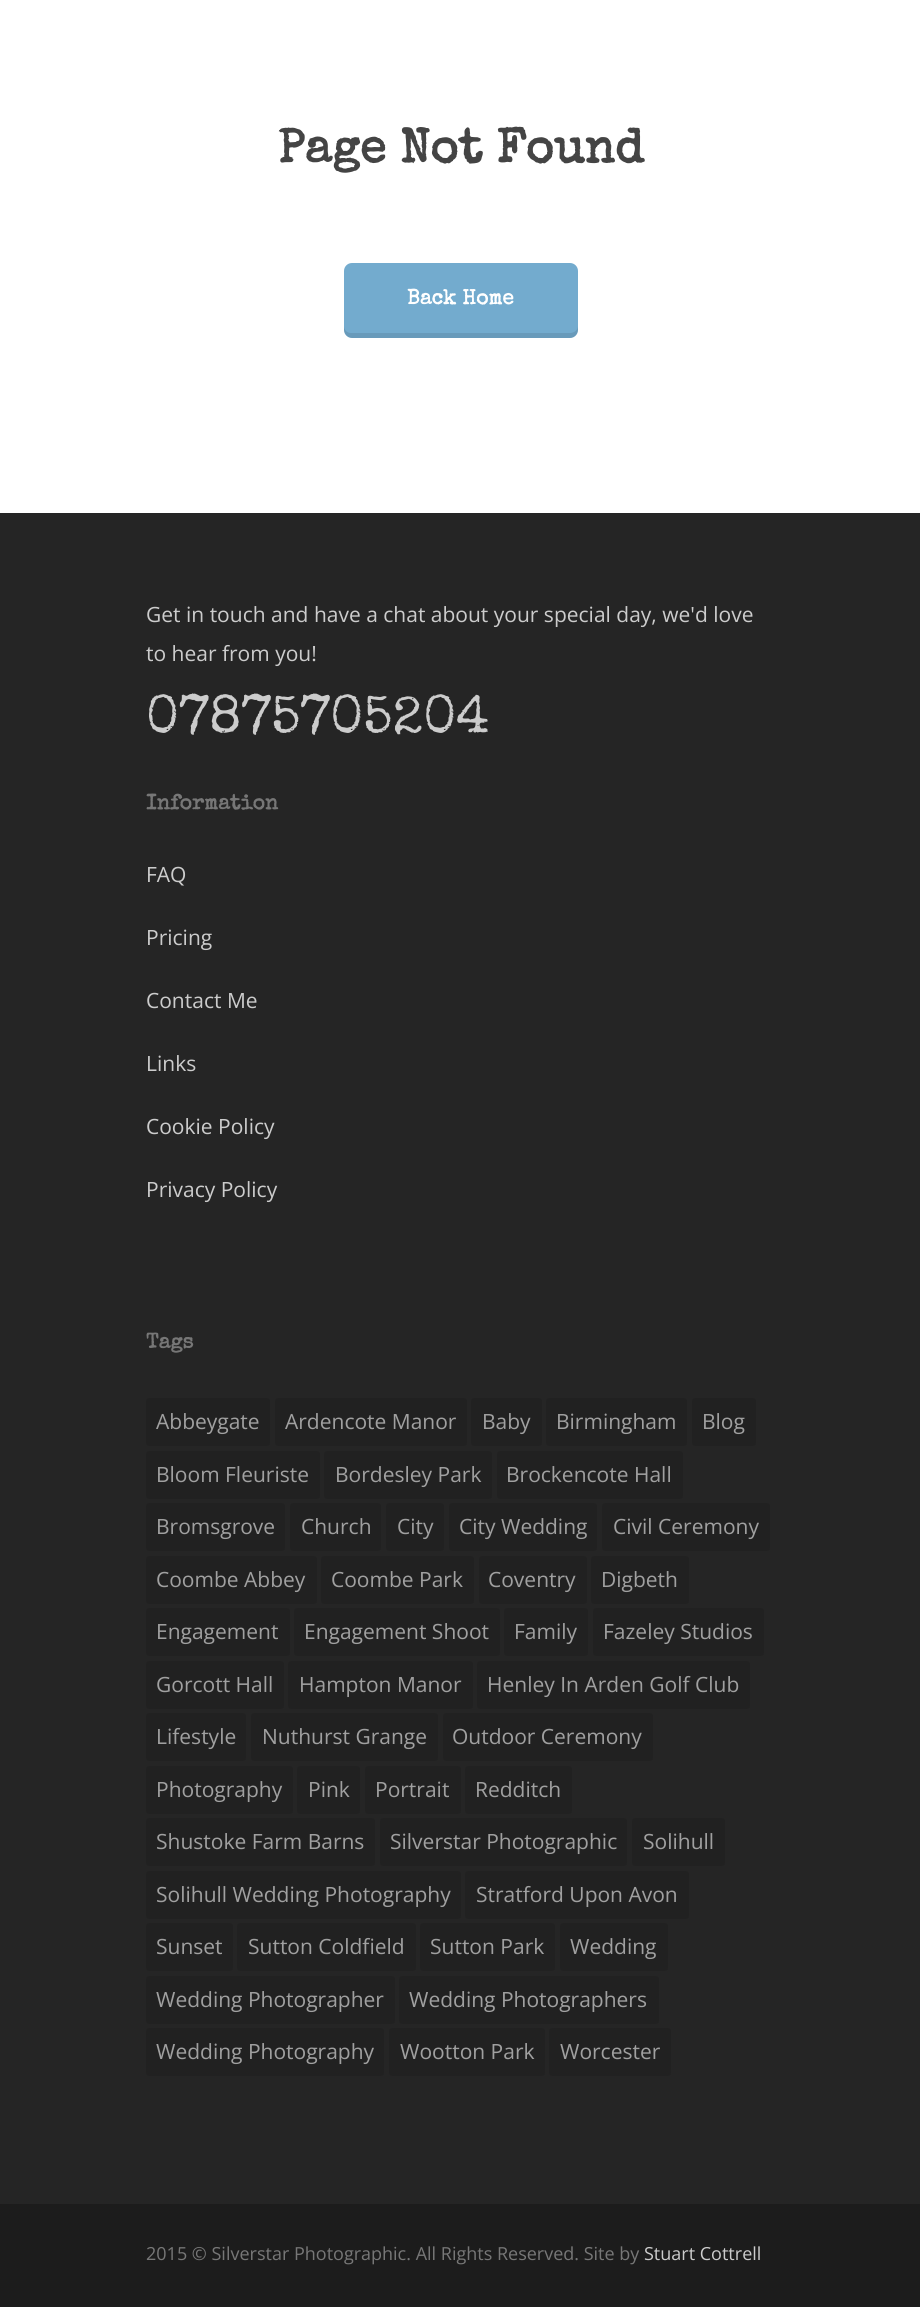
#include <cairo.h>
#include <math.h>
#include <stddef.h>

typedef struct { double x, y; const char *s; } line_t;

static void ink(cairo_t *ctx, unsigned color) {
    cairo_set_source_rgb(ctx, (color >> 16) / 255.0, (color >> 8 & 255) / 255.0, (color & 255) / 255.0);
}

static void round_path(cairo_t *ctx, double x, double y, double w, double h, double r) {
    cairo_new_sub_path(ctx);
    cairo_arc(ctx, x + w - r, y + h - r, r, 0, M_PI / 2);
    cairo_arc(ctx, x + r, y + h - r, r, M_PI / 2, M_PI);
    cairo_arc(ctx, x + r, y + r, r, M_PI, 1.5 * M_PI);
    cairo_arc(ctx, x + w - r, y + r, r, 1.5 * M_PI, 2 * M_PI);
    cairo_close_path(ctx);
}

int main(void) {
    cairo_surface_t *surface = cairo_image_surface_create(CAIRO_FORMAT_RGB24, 920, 2307);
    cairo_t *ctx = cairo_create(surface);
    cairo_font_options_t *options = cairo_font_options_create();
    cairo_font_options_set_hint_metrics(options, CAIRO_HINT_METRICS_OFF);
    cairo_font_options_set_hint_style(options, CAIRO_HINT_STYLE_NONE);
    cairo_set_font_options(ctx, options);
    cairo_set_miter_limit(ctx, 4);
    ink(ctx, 0x252525);
    cairo_paint(ctx);
    ink(ctx, 0xFFFFFF);
    cairo_rectangle(ctx, 0, 0, 920, 513);
    cairo_fill(ctx);
    cairo_select_font_face(ctx, "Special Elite", CAIRO_FONT_SLANT_NORMAL, CAIRO_FONT_WEIGHT_BOLD);
    cairo_set_font_size(ctx, 48);
    ink(ctx, 0x444444);
    cairo_move_to(ctx, 278, 162);
    cairo_show_text(ctx, "Page Not Found");
    ink(ctx, 0x73ABCE);
    round_path(ctx, 344, 263, 234, 75, 8);
    cairo_fill(ctx);
    cairo_set_source_rgba(ctx, 0, 0, 0, 0.1);
    cairo_new_path(ctx);
    cairo_move_to(ctx, 344, 326);
    cairo_line_to(ctx, 344, 330);
    cairo_curve_to(ctx, 344, 334, 348, 338, 352, 338);
    cairo_line_to(ctx, 570, 338);
    cairo_curve_to(ctx, 574, 338, 578, 334, 578, 330);
    cairo_line_to(ctx, 578, 326);
    cairo_curve_to(ctx, 578, 330, 574, 333, 570, 333);
    cairo_line_to(ctx, 351, 333);
    cairo_curve_to(ctx, 347, 333, 344, 330, 344, 326);
    cairo_close_path(ctx);
    cairo_fill(ctx);
    cairo_set_font_size(ctx, 21);
    ink(ctx, 0xFFFFFF);
    cairo_move_to(ctx, 407, 304);
    cairo_show_text(ctx, "Back Home");
    cairo_select_font_face(ctx, "Open Sans", CAIRO_FONT_SLANT_NORMAL, CAIRO_FONT_WEIGHT_NORMAL);
    ink(ctx, 0xCCCCCC);
    cairo_move_to(ctx, 146, 622);
    cairo_show_text(ctx, "Get in touch and have a chat about your special day, we'd love");
    cairo_move_to(ctx, 146, 661);
    cairo_show_text(ctx, "to hear from you!");
    cairo_select_font_face(ctx, "Special Elite", CAIRO_FONT_SLANT_NORMAL, CAIRO_FONT_WEIGHT_NORMAL);
    cairo_set_font_size(ctx, 54);
    cairo_move_to(ctx, 146, 733);
    cairo_show_text(ctx, "07875705204");
    cairo_select_font_face(ctx, "Special Elite", CAIRO_FONT_SLANT_NORMAL, CAIRO_FONT_WEIGHT_BOLD);
    cairo_set_font_size(ctx, 21);
    ink(ctx, 0x777777);
    cairo_move_to(ctx, 146, 809);
    cairo_show_text(ctx, "Information");
    cairo_select_font_face(ctx, "Open Sans", CAIRO_FONT_SLANT_NORMAL, CAIRO_FONT_WEIGHT_NORMAL);
    ink(ctx, 0xCCCCCC);
    {
        static const line_t items[] = {
            {146, 882, "FAQ"},
            {146, 945, "Pricing"},
            {146, 1008, "Contact Me"},
            {146, 1071, "Links"},
            {146, 1134, "Cookie Policy"},
            {146, 1197, "Privacy Policy"},
        };
        for (size_t i = 0; i < sizeof items / sizeof *items; i++) {
            cairo_move_to(ctx, items[i].x, items[i].y);
            cairo_show_text(ctx, items[i].s);
        }
    }
    cairo_select_font_face(ctx, "Special Elite", CAIRO_FONT_SLANT_NORMAL, CAIRO_FONT_WEIGHT_BOLD);
    ink(ctx, 0x777777);
    cairo_move_to(ctx, 146, 1348);
    cairo_show_text(ctx, "Tags");
    ink(ctx, 0x212121);
    round_path(ctx, 146, 1398, 124, 48, 3);
    cairo_fill(ctx);
    cairo_select_font_face(ctx, "Open Sans", CAIRO_FONT_SLANT_NORMAL, CAIRO_FONT_WEIGHT_NORMAL);
    ink(ctx, 0xA0A0A0);
    cairo_move_to(ctx, 156, 1429);
    cairo_show_text(ctx, "Abbeygate");
    ink(ctx, 0x212121);
    round_path(ctx, 275, 1398, 192, 48, 3);
    cairo_fill(ctx);
    ink(ctx, 0xA0A0A0);
    cairo_move_to(ctx, 285, 1429);
    cairo_show_text(ctx, "Ardencote Manor");
    ink(ctx, 0x212121);
    round_path(ctx, 471, 1398, 71, 48, 3);
    cairo_fill(ctx);
    ink(ctx, 0xA0A0A0);
    cairo_move_to(ctx, 482, 1429);
    cairo_show_text(ctx, "Baby");
    ink(ctx, 0x212121);
    round_path(ctx, 546, 1398, 141, 48, 3);
    cairo_fill(ctx);
    ink(ctx, 0xA0A0A0);
    cairo_move_to(ctx, 556, 1429);
    cairo_show_text(ctx, "Birmingham");
    ink(ctx, 0x212121);
    round_path(ctx, 692, 1398, 64, 48, 3);
    cairo_fill(ctx);
    ink(ctx, 0xA0A0A0);
    cairo_move_to(ctx, 702, 1429);
    cairo_show_text(ctx, "Blog");
    ink(ctx, 0x212121);
    round_path(ctx, 146, 1451, 174, 48, 3);
    cairo_fill(ctx);
    ink(ctx, 0xA0A0A0);
    cairo_move_to(ctx, 156, 1482);
    cairo_show_text(ctx, "Bloom Fleuriste");
    ink(ctx, 0x212121);
    round_path(ctx, 324, 1451, 168, 48, 3);
    cairo_fill(ctx);
    ink(ctx, 0xA0A0A0);
    cairo_move_to(ctx, 335, 1482);
    cairo_show_text(ctx, "Bordesley Park");
    ink(ctx, 0x212121);
    round_path(ctx, 497, 1451, 186, 48, 3);
    cairo_fill(ctx);
    ink(ctx, 0xA0A0A0);
    cairo_move_to(ctx, 506, 1482);
    cairo_show_text(ctx, "Brockencote Hall");
    ink(ctx, 0x212121);
    round_path(ctx, 146, 1503, 139, 48, 3);
    cairo_fill(ctx);
    ink(ctx, 0xA0A0A0);
    cairo_move_to(ctx, 156, 1534);
    cairo_show_text(ctx, "Bromsgrove");
    ink(ctx, 0x212121);
    round_path(ctx, 290, 1503, 91, 48, 3);
    cairo_fill(ctx);
    ink(ctx, 0xA0A0A0);
    cairo_move_to(ctx, 301, 1534);
    cairo_show_text(ctx, "Church");
    ink(ctx, 0x212121);
    round_path(ctx, 386, 1503, 58, 48, 3);
    cairo_fill(ctx);
    ink(ctx, 0xA0A0A0);
    cairo_move_to(ctx, 397, 1534);
    cairo_show_text(ctx, "City");
    ink(ctx, 0x212121);
    round_path(ctx, 449, 1503, 148, 48, 3);
    cairo_fill(ctx);
    ink(ctx, 0xA0A0A0);
    cairo_move_to(ctx, 459, 1534);
    cairo_show_text(ctx, "City Wedding");
    ink(ctx, 0x212121);
    round_path(ctx, 602, 1503, 168, 48, 3);
    cairo_fill(ctx);
    ink(ctx, 0xA0A0A0);
    cairo_move_to(ctx, 613, 1534);
    cairo_show_text(ctx, "Civil Ceremony");
    ink(ctx, 0x212121);
    round_path(ctx, 146, 1556, 171, 48, 3);
    cairo_fill(ctx);
    ink(ctx, 0xA0A0A0);
    cairo_move_to(ctx, 156, 1587);
    cairo_show_text(ctx, "Coombe Abbey");
    ink(ctx, 0x212121);
    round_path(ctx, 321, 1556, 153, 48, 3);
    cairo_fill(ctx);
    ink(ctx, 0xA0A0A0);
    cairo_move_to(ctx, 331, 1587);
    cairo_show_text(ctx, "Coombe Park");
    ink(ctx, 0x212121);
    round_path(ctx, 479, 1556, 108, 48, 3);
    cairo_fill(ctx);
    ink(ctx, 0xA0A0A0);
    cairo_move_to(ctx, 488, 1587);
    cairo_show_text(ctx, "Coventry");
    ink(ctx, 0x212121);
    round_path(ctx, 591, 1556, 98, 48, 3);
    cairo_fill(ctx);
    ink(ctx, 0xA0A0A0);
    cairo_move_to(ctx, 601, 1587);
    cairo_show_text(ctx, "Digbeth");
    ink(ctx, 0x212121);
    round_path(ctx, 146, 1608, 144, 48, 3);
    cairo_fill(ctx);
    ink(ctx, 0xA0A0A0);
    cairo_move_to(ctx, 156, 1639);
    cairo_show_text(ctx, "Engagement");
    ink(ctx, 0x212121);
    round_path(ctx, 294, 1608, 206, 48, 3);
    cairo_fill(ctx);
    ink(ctx, 0xA0A0A0);
    cairo_move_to(ctx, 304, 1639);
    cairo_show_text(ctx, "Engagement Shoot");
    ink(ctx, 0x212121);
    round_path(ctx, 504, 1608, 84, 48, 3);
    cairo_fill(ctx);
    ink(ctx, 0xA0A0A0);
    cairo_move_to(ctx, 514, 1639);
    cairo_show_text(ctx, "Family");
    ink(ctx, 0x212121);
    round_path(ctx, 593, 1608, 171, 48, 3);
    cairo_fill(ctx);
    ink(ctx, 0xA0A0A0);
    cairo_move_to(ctx, 603, 1639);
    cairo_show_text(ctx, "Fazeley Studios");
    ink(ctx, 0x212121);
    round_path(ctx, 146, 1661, 138, 48, 3);
    cairo_fill(ctx);
    ink(ctx, 0xA0A0A0);
    cairo_move_to(ctx, 156, 1692);
    cairo_show_text(ctx, "Gorcott Hall");
    ink(ctx, 0x212121);
    round_path(ctx, 288, 1661, 185, 48, 3);
    cairo_fill(ctx);
    ink(ctx, 0xA0A0A0);
    cairo_move_to(ctx, 299, 1692);
    cairo_show_text(ctx, "Hampton Manor");
    ink(ctx, 0x212121);
    round_path(ctx, 477, 1661, 273, 48, 3);
    cairo_fill(ctx);
    ink(ctx, 0xA0A0A0);
    cairo_move_to(ctx, 487, 1692);
    cairo_show_text(ctx, "Henley In Arden Golf Club");
    ink(ctx, 0x212121);
    round_path(ctx, 146, 1713, 100, 48, 3);
    cairo_fill(ctx);
    ink(ctx, 0xA0A0A0);
    cairo_move_to(ctx, 156, 1744);
    cairo_show_text(ctx, "Lifestyle");
    ink(ctx, 0x212121);
    round_path(ctx, 251, 1713, 187, 48, 3);
    cairo_fill(ctx);
    ink(ctx, 0xA0A0A0);
    cairo_move_to(ctx, 262, 1744);
    cairo_show_text(ctx, "Nuthurst Grange");
    ink(ctx, 0x212121);
    round_path(ctx, 443, 1713, 210, 48, 3);
    cairo_fill(ctx);
    ink(ctx, 0xA0A0A0);
    cairo_move_to(ctx, 452, 1744);
    cairo_show_text(ctx, "Outdoor Ceremony");
    ink(ctx, 0x212121);
    round_path(ctx, 146, 1766, 147, 48, 3);
    cairo_fill(ctx);
    ink(ctx, 0xA0A0A0);
    cairo_move_to(ctx, 156, 1797);
    cairo_show_text(ctx, "Photography");
    ink(ctx, 0x212121);
    round_path(ctx, 297, 1766, 63, 48, 3);
    cairo_fill(ctx);
    ink(ctx, 0xA0A0A0);
    cairo_move_to(ctx, 308, 1797);
    cairo_show_text(ctx, "Pink");
    ink(ctx, 0x212121);
    round_path(ctx, 365, 1766, 96, 48, 3);
    cairo_fill(ctx);
    ink(ctx, 0xA0A0A0);
    cairo_move_to(ctx, 375, 1797);
    cairo_show_text(ctx, "Portrait");
    ink(ctx, 0x212121);
    round_path(ctx, 465, 1766, 107, 48, 3);
    cairo_fill(ctx);
    ink(ctx, 0xA0A0A0);
    cairo_move_to(ctx, 475, 1797);
    cairo_show_text(ctx, "Redditch");
    ink(ctx, 0x212121);
    round_path(ctx, 146, 1818, 229, 48, 3);
    cairo_fill(ctx);
    ink(ctx, 0xA0A0A0);
    cairo_move_to(ctx, 156, 1849);
    cairo_show_text(ctx, "Shustoke Farm Barns");
    ink(ctx, 0x212121);
    round_path(ctx, 380, 1818, 247, 48, 3);
    cairo_fill(ctx);
    ink(ctx, 0xA0A0A0);
    cairo_move_to(ctx, 390, 1849);
    cairo_show_text(ctx, "Silverstar Photographic");
    ink(ctx, 0x212121);
    round_path(ctx, 632, 1818, 93, 48, 3);
    cairo_fill(ctx);
    ink(ctx, 0xA0A0A0);
    cairo_move_to(ctx, 643, 1849);
    cairo_show_text(ctx, "Solihull");
    ink(ctx, 0x212121);
    round_path(ctx, 146, 1871, 315, 48, 3);
    cairo_fill(ctx);
    ink(ctx, 0xA0A0A0);
    cairo_move_to(ctx, 156, 1902);
    cairo_show_text(ctx, "Solihull Wedding Photography");
    ink(ctx, 0x212121);
    round_path(ctx, 465, 1871, 224, 48, 3);
    cairo_fill(ctx);
    ink(ctx, 0xA0A0A0);
    cairo_move_to(ctx, 476, 1902);
    cairo_show_text(ctx, "Stratford Upon Avon");
    ink(ctx, 0x212121);
    round_path(ctx, 146, 1923, 87, 48, 3);
    cairo_fill(ctx);
    ink(ctx, 0xA0A0A0);
    cairo_move_to(ctx, 156, 1954);
    cairo_show_text(ctx, "Sunset");
    ink(ctx, 0x212121);
    round_path(ctx, 237, 1923, 179, 48, 3);
    cairo_fill(ctx);
    ink(ctx, 0xA0A0A0);
    cairo_move_to(ctx, 248, 1954);
    cairo_show_text(ctx, "Sutton Coldfield");
    ink(ctx, 0x212121);
    round_path(ctx, 420, 1923, 135, 48, 3);
    cairo_fill(ctx);
    ink(ctx, 0xA0A0A0);
    cairo_move_to(ctx, 430, 1954);
    cairo_show_text(ctx, "Sutton Park");
    ink(ctx, 0x212121);
    round_path(ctx, 560, 1923, 108, 48, 3);
    cairo_fill(ctx);
    ink(ctx, 0xA0A0A0);
    cairo_move_to(ctx, 570, 1954);
    cairo_show_text(ctx, "Wedding");
    ink(ctx, 0x212121);
    round_path(ctx, 146, 1976, 249, 48, 3);
    cairo_fill(ctx);
    ink(ctx, 0xA0A0A0);
    cairo_move_to(ctx, 156, 2007);
    cairo_show_text(ctx, "Wedding Photographer");
    ink(ctx, 0x212121);
    round_path(ctx, 399, 1976, 260, 48, 3);
    cairo_fill(ctx);
    ink(ctx, 0xA0A0A0);
    cairo_move_to(ctx, 409, 2007);
    cairo_show_text(ctx, "Wedding Photographers");
    ink(ctx, 0x212121);
    round_path(ctx, 146, 2028, 238, 48, 3);
    cairo_fill(ctx);
    ink(ctx, 0xA0A0A0);
    cairo_move_to(ctx, 156, 2059);
    cairo_show_text(ctx, "Wedding Photography");
    ink(ctx, 0x212121);
    round_path(ctx, 389, 2028, 156, 48, 3);
    cairo_fill(ctx);
    ink(ctx, 0xA0A0A0);
    cairo_move_to(ctx, 400, 2059);
    cairo_show_text(ctx, "Wootton Park");
    ink(ctx, 0x212121);
    round_path(ctx, 549, 2028, 122, 48, 3);
    cairo_fill(ctx);
    ink(ctx, 0xA0A0A0);
    cairo_move_to(ctx, 560, 2059);
    cairo_show_text(ctx, "Worcester");
    ink(ctx, 0x1C1C1C);
    cairo_rectangle(ctx, 0, 2204, 920, 103);
    cairo_fill(ctx);
    cairo_set_font_size(ctx, 18);
    ink(ctx, 0x777777);
    cairo_move_to(ctx, 146, 2260);
    cairo_show_text(ctx, "2015 © Silverstar Photographic. All Rights Reserved. Site by");
    ink(ctx, 0xCCCCCC);
    cairo_move_to(ctx, 644, 2260);
    cairo_show_text(ctx, "Stuart Cottrell");
    cairo_surface_write_to_png(surface, "image.png");
    cairo_font_options_destroy(options);
    cairo_destroy(ctx);
    cairo_surface_destroy(surface);
    return 0;
}
